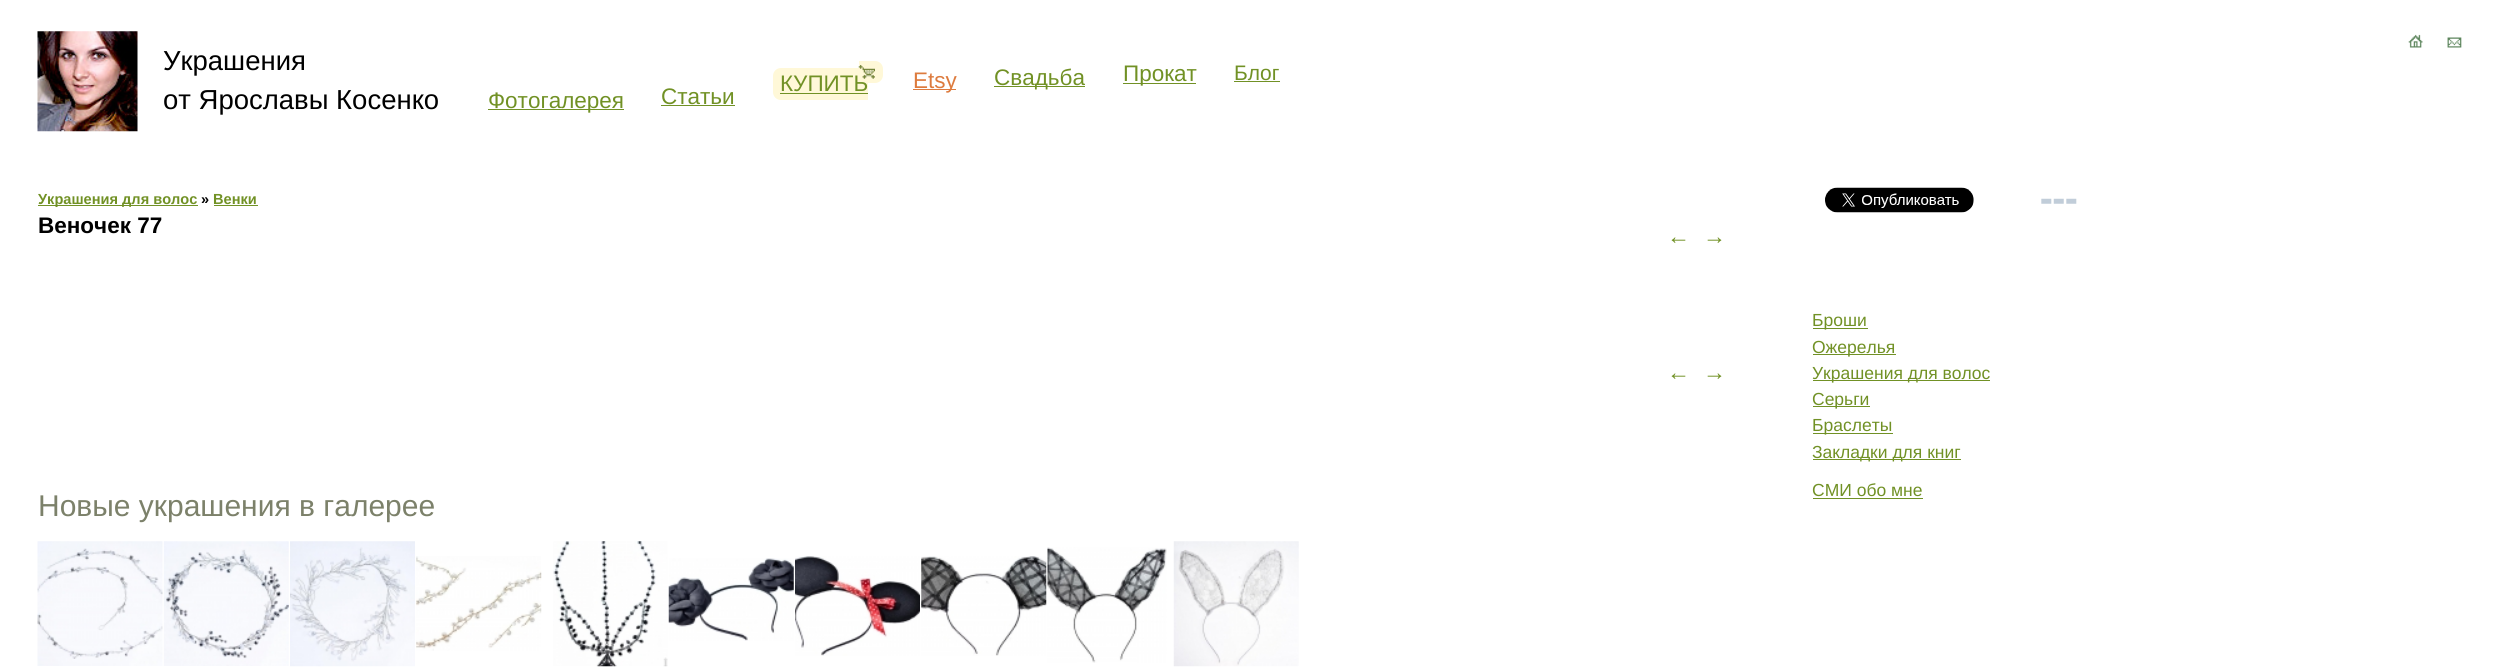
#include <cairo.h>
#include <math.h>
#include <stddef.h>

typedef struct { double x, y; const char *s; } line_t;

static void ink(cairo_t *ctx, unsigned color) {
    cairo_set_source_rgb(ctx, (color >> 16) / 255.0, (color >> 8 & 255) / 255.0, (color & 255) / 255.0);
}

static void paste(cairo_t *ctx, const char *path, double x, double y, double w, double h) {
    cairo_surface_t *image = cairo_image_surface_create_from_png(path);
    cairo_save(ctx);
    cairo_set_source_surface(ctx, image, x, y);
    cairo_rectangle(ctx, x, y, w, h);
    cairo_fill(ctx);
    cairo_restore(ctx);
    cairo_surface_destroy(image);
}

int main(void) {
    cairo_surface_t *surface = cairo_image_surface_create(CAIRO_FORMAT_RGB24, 2502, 668);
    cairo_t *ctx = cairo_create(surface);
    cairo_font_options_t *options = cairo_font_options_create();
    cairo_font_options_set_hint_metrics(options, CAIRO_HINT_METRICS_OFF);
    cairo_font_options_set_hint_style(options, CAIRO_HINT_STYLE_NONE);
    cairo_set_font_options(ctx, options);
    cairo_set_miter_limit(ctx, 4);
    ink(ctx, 0xFFFFFF);
    cairo_paint(ctx);
    paste(ctx, "media/1.png", 2408, 34, 15, 14);
    paste(ctx, "media/2.png", 2447, 37, 15, 11);
    paste(ctx, "media/3.png", 37, 31, 101, 101);
    cairo_select_font_face(ctx, "Liberation Sans", CAIRO_FONT_SLANT_NORMAL, CAIRO_FONT_WEIGHT_NORMAL);
    cairo_set_font_size(ctx, 27.5);
    ink(ctx, 0x000000);
    cairo_move_to(ctx, 163, 70);
    cairo_show_text(ctx, "Украшения");
    cairo_move_to(ctx, 163, 109);
    cairo_show_text(ctx, "от Ярославы Косенко");
    ink(ctx, 0xFFF8D8);
    cairo_new_path(ctx);
    cairo_move_to(ctx, 781, 68);
    cairo_line_to(ctx, 868, 68);
    cairo_line_to(ctx, 868, 100);
    cairo_line_to(ctx, 781, 100);
    cairo_curve_to(ctx, 776.5, 100, 773, 96.5, 773, 92);
    cairo_line_to(ctx, 773, 76);
    cairo_curve_to(ctx, 773, 71.5, 776.5, 68, 781, 68);
    cairo_close_path(ctx);
    cairo_fill(ctx);
    cairo_new_path(ctx);
    cairo_move_to(ctx, 859, 61);
    cairo_line_to(ctx, 875, 61);
    cairo_curve_to(ctx, 879.5, 61, 883, 64.5, 883, 69);
    cairo_line_to(ctx, 883, 75);
    cairo_curve_to(ctx, 883, 79.5, 879.5, 83, 875, 83);
    cairo_line_to(ctx, 859, 83);
    cairo_close_path(ctx);
    cairo_fill(ctx);
    cairo_set_font_size(ctx, 22.5);
    ink(ctx, 0x719125);
    cairo_move_to(ctx, 780, 91);
    cairo_show_text(ctx, "КУПИТЬ");
    paste(ctx, "media/4.png", 858, 65, 17, 14);
    cairo_rectangle(ctx, 780, 93, 88, 1);
    cairo_fill(ctx);
    ink(ctx, 0xDD7B3E);
    cairo_rectangle(ctx, 913, 89, 43, 1);
    cairo_fill(ctx);
    cairo_move_to(ctx, 913, 88);
    cairo_show_text(ctx, "Etsy");
    ink(ctx, 0x719125);
    cairo_rectangle(ctx, 994, 86, 91, 1);
    cairo_fill(ctx);
    cairo_move_to(ctx, 994, 85);
    cairo_show_text(ctx, "Свадьба");
    cairo_rectangle(ctx, 1123, 83, 73, 1);
    cairo_fill(ctx);
    cairo_move_to(ctx, 1123, 81);
    cairo_show_text(ctx, "Прокат");
    cairo_set_font_size(ctx, 21);
    cairo_move_to(ctx, 1234, 80);
    cairo_show_text(ctx, "Блог");
    cairo_rectangle(ctx, 1234, 81, 46, 1);
    cairo_fill(ctx);
    cairo_rectangle(ctx, 488, 109, 136, 1);
    cairo_fill(ctx);
    cairo_set_font_size(ctx, 22.5);
    cairo_move_to(ctx, 488, 108);
    cairo_show_text(ctx, "Фотогалерея");
    cairo_move_to(ctx, 661, 104);
    cairo_show_text(ctx, "Статьи");
    cairo_rectangle(ctx, 661, 105, 74, 1);
    cairo_fill(ctx);
    cairo_rectangle(ctx, 38, 205, 160, 1);
    cairo_fill(ctx);
    cairo_select_font_face(ctx, "Liberation Sans", CAIRO_FONT_SLANT_NORMAL, CAIRO_FONT_WEIGHT_BOLD);
    cairo_set_font_size(ctx, 14.6);
    cairo_move_to(ctx, 38, 204);
    cairo_show_text(ctx, "Украшения для волос");
    ink(ctx, 0x000000);
    cairo_move_to(ctx, 201, 204);
    cairo_show_text(ctx, "»");
    ink(ctx, 0x719125);
    cairo_move_to(ctx, 213, 204);
    cairo_show_text(ctx, "Венки");
    cairo_rectangle(ctx, 214, 205, 44, 1);
    cairo_fill(ctx);
    cairo_set_font_size(ctx, 22.5);
    ink(ctx, 0x000000);
    cairo_move_to(ctx, 38, 233);
    cairo_show_text(ctx, "Веночек 77");
    cairo_select_font_face(ctx, "Liberation Sans", CAIRO_FONT_SLANT_NORMAL, CAIRO_FONT_WEIGHT_NORMAL);
    cairo_set_font_size(ctx, 23);
    ink(ctx, 0x719125);
    {
        static const line_t items[] = {
            {1667, 244, "←"},
            {1703, 244, "→"},
            {1667, 380, "←"},
            {1703, 380, "→"},
        };
        for (size_t i = 0; i < sizeof items / sizeof *items; i++) {
            cairo_move_to(ctx, items[i].x, items[i].y);
            cairo_show_text(ctx, items[i].s);
        }
    }
    cairo_set_font_size(ctx, 30);
    ink(ctx, 0x7C816A);
    cairo_move_to(ctx, 38, 516);
    cairo_show_text(ctx, "Новые украшения в галерее");
    paste(ctx, "media/5.png", 37, 541, 126, 125);
    paste(ctx, "media/6.png", 163, 541, 126, 125);
    paste(ctx, "media/7.png", 290, 541, 125, 126);
    paste(ctx, "media/8.png", 416, 556, 126, 95);
    paste(ctx, "media/9.png", 553, 541, 115, 126);
    paste(ctx, "media/10.png", 668, 558, 126, 83);
    paste(ctx, "media/11.png", 795, 556, 125, 100);
    paste(ctx, "media/12.png", 921, 556, 126, 100);
    paste(ctx, "media/13.png", 1047, 547, 120, 116);
    paste(ctx, "media/14.png", 1173, 541, 126, 126);
    paste(ctx, "media/15.png", 1825, 187, 149, 26);
    paste(ctx, "media/16.png", 2041, 198, 36, 6);
    ink(ctx, 0x719125);
    cairo_rectangle(ctx, 1813, 328, 55, 1);
    cairo_fill(ctx);
    cairo_set_font_size(ctx, 17.5);
    cairo_move_to(ctx, 1812, 326);
    cairo_show_text(ctx, "Броши");
    cairo_rectangle(ctx, 1813, 354, 83, 1);
    cairo_fill(ctx);
    cairo_move_to(ctx, 1812, 353);
    cairo_show_text(ctx, "Ожерелья");
    cairo_rectangle(ctx, 1813, 380, 177, 1);
    cairo_fill(ctx);
    cairo_move_to(ctx, 1812, 379);
    cairo_show_text(ctx, "Украшения для волос");
    cairo_rectangle(ctx, 1813, 406, 57, 1);
    cairo_fill(ctx);
    cairo_move_to(ctx, 1812, 405);
    cairo_show_text(ctx, "Серьги");
    cairo_rectangle(ctx, 1813, 433, 80, 1);
    cairo_fill(ctx);
    cairo_move_to(ctx, 1812, 431);
    cairo_show_text(ctx, "Браслеты");
    cairo_rectangle(ctx, 1813, 459, 148, 1);
    cairo_fill(ctx);
    cairo_move_to(ctx, 1812, 458);
    cairo_show_text(ctx, "Закладки для книг");
    cairo_move_to(ctx, 1812, 496);
    cairo_show_text(ctx, "СМИ обо мне");
    cairo_rectangle(ctx, 1813, 498, 110, 1);
    cairo_fill(ctx);
    cairo_surface_write_to_png(surface, "image.png");
    cairo_font_options_destroy(options);
    cairo_destroy(ctx);
    cairo_surface_destroy(surface);
    return 0;
}
